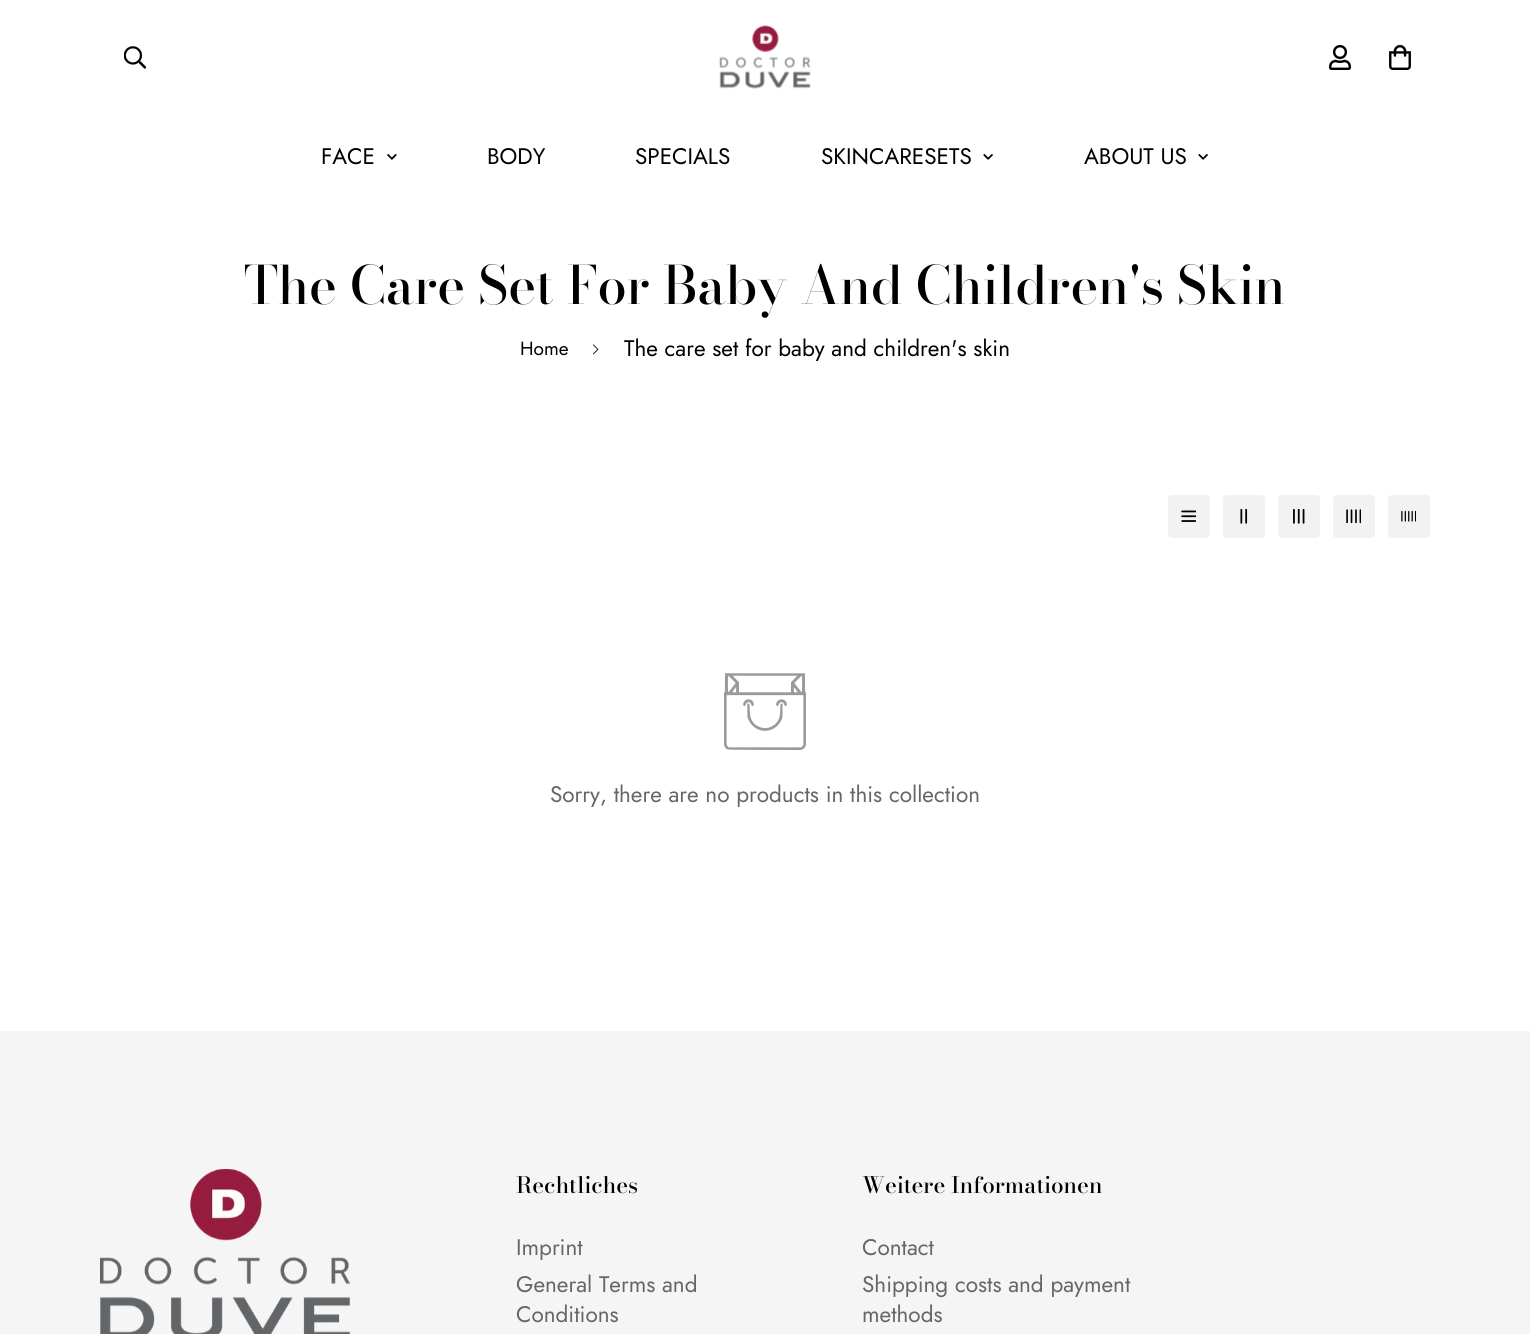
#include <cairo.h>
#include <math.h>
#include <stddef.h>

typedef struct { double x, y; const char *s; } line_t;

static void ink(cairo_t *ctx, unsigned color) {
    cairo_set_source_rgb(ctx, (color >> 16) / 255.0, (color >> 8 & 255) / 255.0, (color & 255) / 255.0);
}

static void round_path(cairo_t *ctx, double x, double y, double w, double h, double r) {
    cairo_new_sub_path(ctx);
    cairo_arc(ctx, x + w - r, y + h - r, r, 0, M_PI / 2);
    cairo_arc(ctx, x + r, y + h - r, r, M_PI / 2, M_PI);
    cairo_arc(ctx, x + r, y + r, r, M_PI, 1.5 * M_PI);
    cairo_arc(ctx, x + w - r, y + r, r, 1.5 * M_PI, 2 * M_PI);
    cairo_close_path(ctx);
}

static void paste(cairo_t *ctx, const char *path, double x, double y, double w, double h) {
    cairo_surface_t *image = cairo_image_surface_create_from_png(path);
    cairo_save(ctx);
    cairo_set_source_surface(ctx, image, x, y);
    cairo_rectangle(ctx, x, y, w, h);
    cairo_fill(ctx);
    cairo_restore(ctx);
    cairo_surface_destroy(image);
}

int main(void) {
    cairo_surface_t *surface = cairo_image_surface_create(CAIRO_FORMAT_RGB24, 1530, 1334);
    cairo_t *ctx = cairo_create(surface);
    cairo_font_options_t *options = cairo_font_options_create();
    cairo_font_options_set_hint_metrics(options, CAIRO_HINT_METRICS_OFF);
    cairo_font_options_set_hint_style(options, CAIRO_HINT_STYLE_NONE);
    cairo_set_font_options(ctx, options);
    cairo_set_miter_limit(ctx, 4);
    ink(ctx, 0xFFFFFF);
    cairo_paint(ctx);
    paste(ctx, "media/1.png", 124, 46, 22, 23);
    paste(ctx, "media/2.png", 719, 25, 92, 64);
    paste(ctx, "media/3.png", 1329, 45, 22, 25);
    paste(ctx, "media/4.png", 1389, 45, 22, 25);
    cairo_select_font_face(ctx, "Jost", CAIRO_FONT_SLANT_NORMAL, CAIRO_FONT_WEIGHT_NORMAL);
    cairo_set_font_size(ctx, 22.5);
    ink(ctx, 0x000000);
    cairo_move_to(ctx, 321, 164);
    cairo_show_text(ctx, "FACE");
    paste(ctx, "media/5.png", 387, 154, 10, 6);
    {
        static const line_t items[] = {
            {487, 164, "BODY"},
            {635, 164, "SPECIALS"},
            {821, 164, "SKINCARESETS"},
        };
        for (size_t i = 0; i < sizeof items / sizeof *items; i++) {
            cairo_move_to(ctx, items[i].x, items[i].y);
            cairo_show_text(ctx, items[i].s);
        }
    }
    paste(ctx, "media/6.png", 983, 154, 10, 6);
    cairo_move_to(ctx, 1084, 164);
    cairo_show_text(ctx, "ABOUT US");
    paste(ctx, "media/6.png", 1198, 154, 10, 6);
    cairo_select_font_face(ctx, "Bodoni Moda Medium", CAIRO_FONT_SLANT_NORMAL, CAIRO_FONT_WEIGHT_NORMAL);
    cairo_set_font_size(ctx, 52.5);
    cairo_move_to(ctx, 244, 304);
    cairo_show_text(ctx, "The Care Set For Baby And Children's Skin");
    cairo_select_font_face(ctx, "Jost", CAIRO_FONT_SLANT_NORMAL, CAIRO_FONT_WEIGHT_NORMAL);
    cairo_set_font_size(ctx, 19);
    cairo_move_to(ctx, 520, 355);
    cairo_show_text(ctx, "Home");
    paste(ctx, "media/7.png", 593, 344, 6, 11);
    cairo_set_font_size(ctx, 22.5);
    cairo_move_to(ctx, 624, 356);
    cairo_show_text(ctx, "The care set for baby and children's skin");
    ink(ctx, 0xF2F2F2);
    round_path(ctx, 1168, 495, 42, 43, 4);
    cairo_fill(ctx);
    paste(ctx, "media/8.png", 1181, 510, 15, 12);
    round_path(ctx, 1223, 495, 42, 43, 4);
    cairo_fill(ctx);
    paste(ctx, "media/9.png", 1240, 509, 8, 15);
    round_path(ctx, 1278, 495, 42, 43, 4);
    cairo_fill(ctx);
    paste(ctx, "media/10.png", 1293, 509, 12, 15);
    round_path(ctx, 1333, 495, 42, 43, 4);
    cairo_fill(ctx);
    paste(ctx, "media/11.png", 1346, 509, 15, 15);
    round_path(ctx, 1388, 495, 42, 43, 4);
    cairo_fill(ctx);
    paste(ctx, "media/12.png", 1401, 510, 15, 12);
    paste(ctx, "media/13.png", 724, 673, 82, 77);
    ink(ctx, 0x666666);
    cairo_move_to(ctx, 550, 802);
    cairo_show_text(ctx, "Sorry, there are no products in this collection");
    ink(ctx, 0xF5F5F5);
    cairo_rectangle(ctx, 0, 1031, 1530, 303);
    cairo_fill(ctx);
    paste(ctx, "media/14.png", 100, 1169, 250, 165);
    cairo_select_font_face(ctx, "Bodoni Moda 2 Medium", CAIRO_FONT_SLANT_NORMAL, CAIRO_FONT_WEIGHT_NORMAL);
    ink(ctx, 0x000000);
    cairo_move_to(ctx, 516, 1193);
    cairo_show_text(ctx, "Rechtliches");
    cairo_select_font_face(ctx, "Jost", CAIRO_FONT_SLANT_NORMAL, CAIRO_FONT_WEIGHT_NORMAL);
    ink(ctx, 0x666666);
    {
        static const line_t items[] = {
            {516, 1255, "Imprint"},
            {516, 1292, "General Terms and"},
            {516, 1322, "Conditions"},
        };
        for (size_t i = 0; i < sizeof items / sizeof *items; i++) {
            cairo_move_to(ctx, items[i].x, items[i].y);
            cairo_show_text(ctx, items[i].s);
        }
    }
    cairo_select_font_face(ctx, "Bodoni Moda 2 Medium", CAIRO_FONT_SLANT_NORMAL, CAIRO_FONT_WEIGHT_NORMAL);
    ink(ctx, 0x000000);
    cairo_move_to(ctx, 862, 1193);
    cairo_show_text(ctx, "Weitere Informationen");
    cairo_select_font_face(ctx, "Jost", CAIRO_FONT_SLANT_NORMAL, CAIRO_FONT_WEIGHT_NORMAL);
    ink(ctx, 0x666666);
    {
        static const line_t items[] = {
            {862, 1255, "Contact"},
            {862, 1292, "Shipping costs and payment"},
            {862, 1322, "methods"},
        };
        for (size_t i = 0; i < sizeof items / sizeof *items; i++) {
            cairo_move_to(ctx, items[i].x, items[i].y);
            cairo_show_text(ctx, items[i].s);
        }
    }
    cairo_surface_write_to_png(surface, "image.png");
    cairo_font_options_destroy(options);
    cairo_destroy(ctx);
    cairo_surface_destroy(surface);
    return 0;
}
